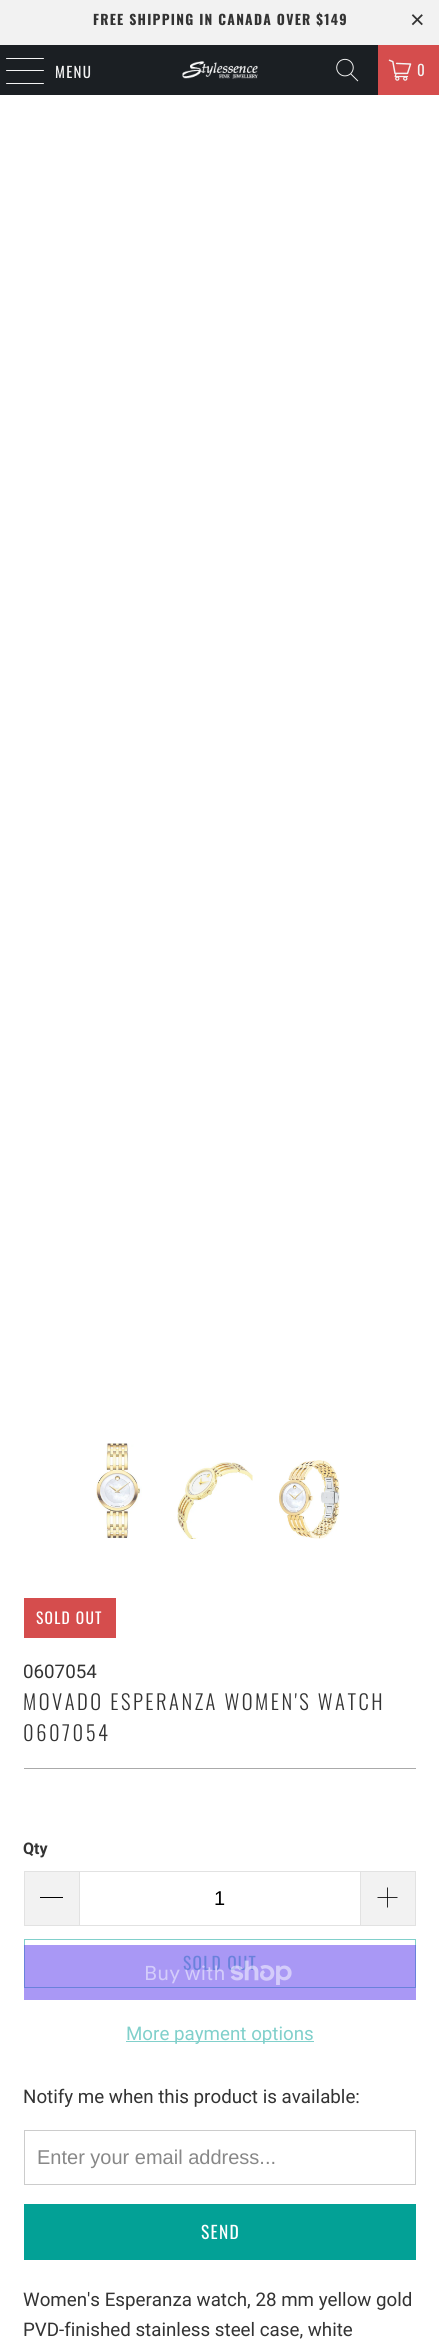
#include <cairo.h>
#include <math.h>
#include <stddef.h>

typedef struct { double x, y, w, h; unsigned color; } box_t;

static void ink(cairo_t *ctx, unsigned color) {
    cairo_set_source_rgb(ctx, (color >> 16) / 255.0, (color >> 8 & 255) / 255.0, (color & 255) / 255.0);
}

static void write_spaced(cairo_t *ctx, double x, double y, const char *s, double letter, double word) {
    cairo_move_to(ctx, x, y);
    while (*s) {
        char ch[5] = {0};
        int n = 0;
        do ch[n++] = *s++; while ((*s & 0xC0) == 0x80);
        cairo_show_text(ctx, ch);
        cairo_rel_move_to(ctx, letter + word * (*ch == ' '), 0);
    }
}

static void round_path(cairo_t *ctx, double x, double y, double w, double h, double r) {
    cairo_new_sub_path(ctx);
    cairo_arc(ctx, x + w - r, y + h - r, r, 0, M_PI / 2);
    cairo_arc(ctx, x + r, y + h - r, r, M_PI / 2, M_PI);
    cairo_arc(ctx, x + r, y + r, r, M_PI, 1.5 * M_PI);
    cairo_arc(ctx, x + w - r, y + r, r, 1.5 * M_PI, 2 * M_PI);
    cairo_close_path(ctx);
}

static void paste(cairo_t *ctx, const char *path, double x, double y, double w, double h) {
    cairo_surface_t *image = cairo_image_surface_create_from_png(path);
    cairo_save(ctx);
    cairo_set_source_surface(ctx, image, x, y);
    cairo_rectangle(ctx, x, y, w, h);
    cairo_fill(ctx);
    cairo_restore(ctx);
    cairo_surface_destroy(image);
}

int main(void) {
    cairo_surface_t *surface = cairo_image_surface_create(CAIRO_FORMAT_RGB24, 439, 2352);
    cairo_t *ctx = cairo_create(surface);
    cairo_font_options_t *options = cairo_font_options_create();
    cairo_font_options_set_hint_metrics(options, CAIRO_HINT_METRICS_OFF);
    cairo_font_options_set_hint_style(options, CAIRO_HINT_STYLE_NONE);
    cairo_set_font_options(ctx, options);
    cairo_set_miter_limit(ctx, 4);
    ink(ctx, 0xFFFFFF);
    cairo_paint(ctx);
    ink(ctx, 0xF2F2F2);
    cairo_rectangle(ctx, 0, 0, 439, 45);
    cairo_fill(ctx);
    cairo_select_font_face(ctx, "Oswald", CAIRO_FONT_SLANT_NORMAL, CAIRO_FONT_WEIGHT_BOLD);
    cairo_set_font_size(ctx, 13.75);
    ink(ctx, 0x333333);
    write_spaced(ctx, 93, 25, "FREE SHIPPING IN CANADA OVER $149", 1.25, 0);
    cairo_select_font_face(ctx, "Liberation Sans", CAIRO_FONT_SLANT_NORMAL, CAIRO_FONT_WEIGHT_NORMAL);
    cairo_set_font_size(ctx, 25);
    write_spaced(ctx, 410, 28, "×", 2.5, 0);
    ink(ctx, 0x1B1F23);
    cairo_rectangle(ctx, 0, 45, 378, 50);
    cairo_fill(ctx);
    ink(ctx, 0xF4F4F4);
    round_path(ctx, 6, 58, 38, 1, 0.5);
    cairo_fill(ctx);
    round_path(ctx, 6, 70, 38, 1, 0.5);
    cairo_fill(ctx);
    round_path(ctx, 6, 83, 38, 1, 0.5);
    cairo_fill(ctx);
    cairo_select_font_face(ctx, "Oswald", CAIRO_FONT_SLANT_NORMAL, CAIRO_FONT_WEIGHT_NORMAL);
    cairo_set_font_size(ctx, 15);
    write_spaced(ctx, 55, 78, "MENU", 1.25, 0);
    paste(ctx, "media/1.png", 182, 61, 76, 18);
    paste(ctx, "media/2.png", 336, 58, 23, 24);
    ink(ctx, 0xD54D4D);
    cairo_rectangle(ctx, 378, 45, 61, 50);
    cairo_fill(ctx);
    paste(ctx, "media/3.png", 388, 59, 24, 22);
    ink(ctx, 0xF4F4F4);
    write_spaced(ctx, 417, 76, "0", 1.25, 0);
    paste(ctx, "media/4.png", 96, 1443, 46, 96);
    paste(ctx, "media/5.png", 177, 1462, 76, 77);
    paste(ctx, "media/6.png", 279, 1460, 61, 79);
    ink(ctx, 0xD54D4D);
    cairo_rectangle(ctx, 24, 1598, 92, 40);
    cairo_fill(ctx);
    cairo_set_font_size(ctx, 15.5);
    ink(ctx, 0xFFFFFF);
    write_spaced(ctx, 36, 1624, "SOLD OUT", 1.25, 0);
    cairo_select_font_face(ctx, "Roboto", CAIRO_FONT_SLANT_NORMAL, CAIRO_FONT_WEIGHT_NORMAL);
    cairo_set_font_size(ctx, 18.75);
    ink(ctx, 0x333333);
    cairo_move_to(ctx, 23, 1678);
    cairo_show_text(ctx, "0607054");
    cairo_select_font_face(ctx, "Oswald Light", CAIRO_FONT_SLANT_NORMAL, CAIRO_FONT_WEIGHT_NORMAL);
    cairo_set_font_size(ctx, 20.6);
    write_spaced(ctx, 23, 1710, "MOVADO ESPERANZA WOMEN'S WATCH", 2.5, 0);
    write_spaced(ctx, 23, 1741, "0607054", 2.5, 0);
    ink(ctx, 0xAAAAAA);
    cairo_rectangle(ctx, 24, 1768, 392, 1);
    cairo_fill(ctx);
    cairo_select_font_face(ctx, "Roboto", CAIRO_FONT_SLANT_NORMAL, CAIRO_FONT_WEIGHT_BOLD);
    cairo_set_font_size(ctx, 16);
    ink(ctx, 0x333333);
    cairo_move_to(ctx, 23, 1854);
    cairo_show_text(ctx, "Qty");
    {
        static const box_t items[] = {
            {25, 1872, 54, 53, 0xF2F2F2},
            {24, 1871, 55, 1, 0xE2E2E2},
            {24, 1925, 55, 1, 0xE2E2E2},
            {24, 1871, 1, 55, 0xE2E2E2},
            {40, 1897, 23, 1, 0x000000},
        };
        for (size_t i = 0; i < sizeof items / sizeof *items; i++) {
            ink(ctx, items[i].color);
            cairo_rectangle(ctx, items[i].x, items[i].y, items[i].w, items[i].h);
            cairo_fill(ctx);
        }
    }
    cairo_rectangle(ctx, 79.5, 1871.5, 281, 54);
    ink(ctx, 0xE2E2E2);
    cairo_set_line_width(ctx, 1);
    cairo_stroke(ctx);
    cairo_select_font_face(ctx, "Liberation Sans", CAIRO_FONT_SLANT_NORMAL, CAIRO_FONT_WEIGHT_NORMAL);
    cairo_set_font_size(ctx, 20);
    ink(ctx, 0x000000);
    cairo_move_to(ctx, 214, 1905);
    cairo_show_text(ctx, "1");
    {
        static const box_t items[] = {
            {361, 1872, 54, 53, 0xF2F2F2},
            {361, 1871, 55, 1, 0xE2E2E2},
            {415, 1871, 1, 55, 0xE2E2E2},
            {361, 1925, 55, 1, 0xE2E2E2},
        };
        for (size_t i = 0; i < sizeof items / sizeof *items; i++) {
            ink(ctx, items[i].color);
            cairo_rectangle(ctx, items[i].x, items[i].y, items[i].w, items[i].h);
            cairo_fill(ctx);
        }
    }
    paste(ctx, "media/7.png", 377, 1887, 21, 21);
    cairo_rectangle(ctx, 24.5, 1939.5, 391, 48);
    ink(ctx, 0x81D0CB);
    cairo_stroke(ctx);
    cairo_select_font_face(ctx, "Oswald", CAIRO_FONT_SLANT_NORMAL, CAIRO_FONT_WEIGHT_NORMAL);
    cairo_set_font_size(ctx, 17.5);
    write_spaced(ctx, 183, 1970, "SOLD OUT", 1.25, 0);
    cairo_set_source_rgba(ctx, 0.329, 0.2, 0.922, 0.5);
    cairo_rectangle(ctx, 24, 1945, 392, 55);
    cairo_fill(ctx);
    cairo_select_font_face(ctx, "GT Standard", CAIRO_FONT_SLANT_NORMAL, CAIRO_FONT_WEIGHT_NORMAL);
    cairo_set_font_size(ctx, 20);
    ink(ctx, 0xD3CCFA);
    cairo_move_to(ctx, 144, 1980);
    cairo_show_text(ctx, "Buy with");
    paste(ctx, "media/8.png", 230, 1960, 62, 25);
    ink(ctx, 0x81D0CB);
    cairo_rectangle(ctx, 126, 2041, 188, 1);
    cairo_fill(ctx);
    cairo_select_font_face(ctx, "Roboto", CAIRO_FONT_SLANT_NORMAL, CAIRO_FONT_WEIGHT_NORMAL);
    cairo_set_font_size(ctx, 18.75);
    cairo_move_to(ctx, 126, 2040);
    cairo_show_text(ctx, "More payment options");
    ink(ctx, 0x333333);
    cairo_move_to(ctx, 23, 2103);
    cairo_show_text(ctx, "Notify me when this product is available:");
    cairo_rectangle(ctx, 24.5, 2130.5, 391, 54);
    ink(ctx, 0xCCCCCC);
    cairo_stroke(ctx);
    cairo_select_font_face(ctx, "Liberation Sans", CAIRO_FONT_SLANT_NORMAL, CAIRO_FONT_WEIGHT_NORMAL);
    cairo_set_font_size(ctx, 20);
    ink(ctx, 0x888888);
    cairo_move_to(ctx, 37, 2164);
    cairo_show_text(ctx, "Enter your email address...");
    ink(ctx, 0x03A196);
    cairo_rectangle(ctx, 24, 2204, 392, 56);
    cairo_fill(ctx);
    cairo_select_font_face(ctx, "Oswald", CAIRO_FONT_SLANT_NORMAL, CAIRO_FONT_WEIGHT_NORMAL);
    cairo_set_font_size(ctx, 17.5);
    ink(ctx, 0xFFFFFF);
    write_spaced(ctx, 201, 2239, "SEND", 1.25, 0);
    cairo_select_font_face(ctx, "Roboto", CAIRO_FONT_SLANT_NORMAL, CAIRO_FONT_WEIGHT_NORMAL);
    cairo_set_font_size(ctx, 18.75);
    ink(ctx, 0x333333);
    cairo_move_to(ctx, 23, 2306);
    cairo_show_text(ctx, "Women's Esperanza watch, 28 mm yellow gold");
    cairo_move_to(ctx, 23, 2336);
    cairo_show_text(ctx, "PVD-finished stainless steel case, white");
    cairo_surface_write_to_png(surface, "image.png");
    cairo_font_options_destroy(options);
    cairo_destroy(ctx);
    cairo_surface_destroy(surface);
    return 0;
}
